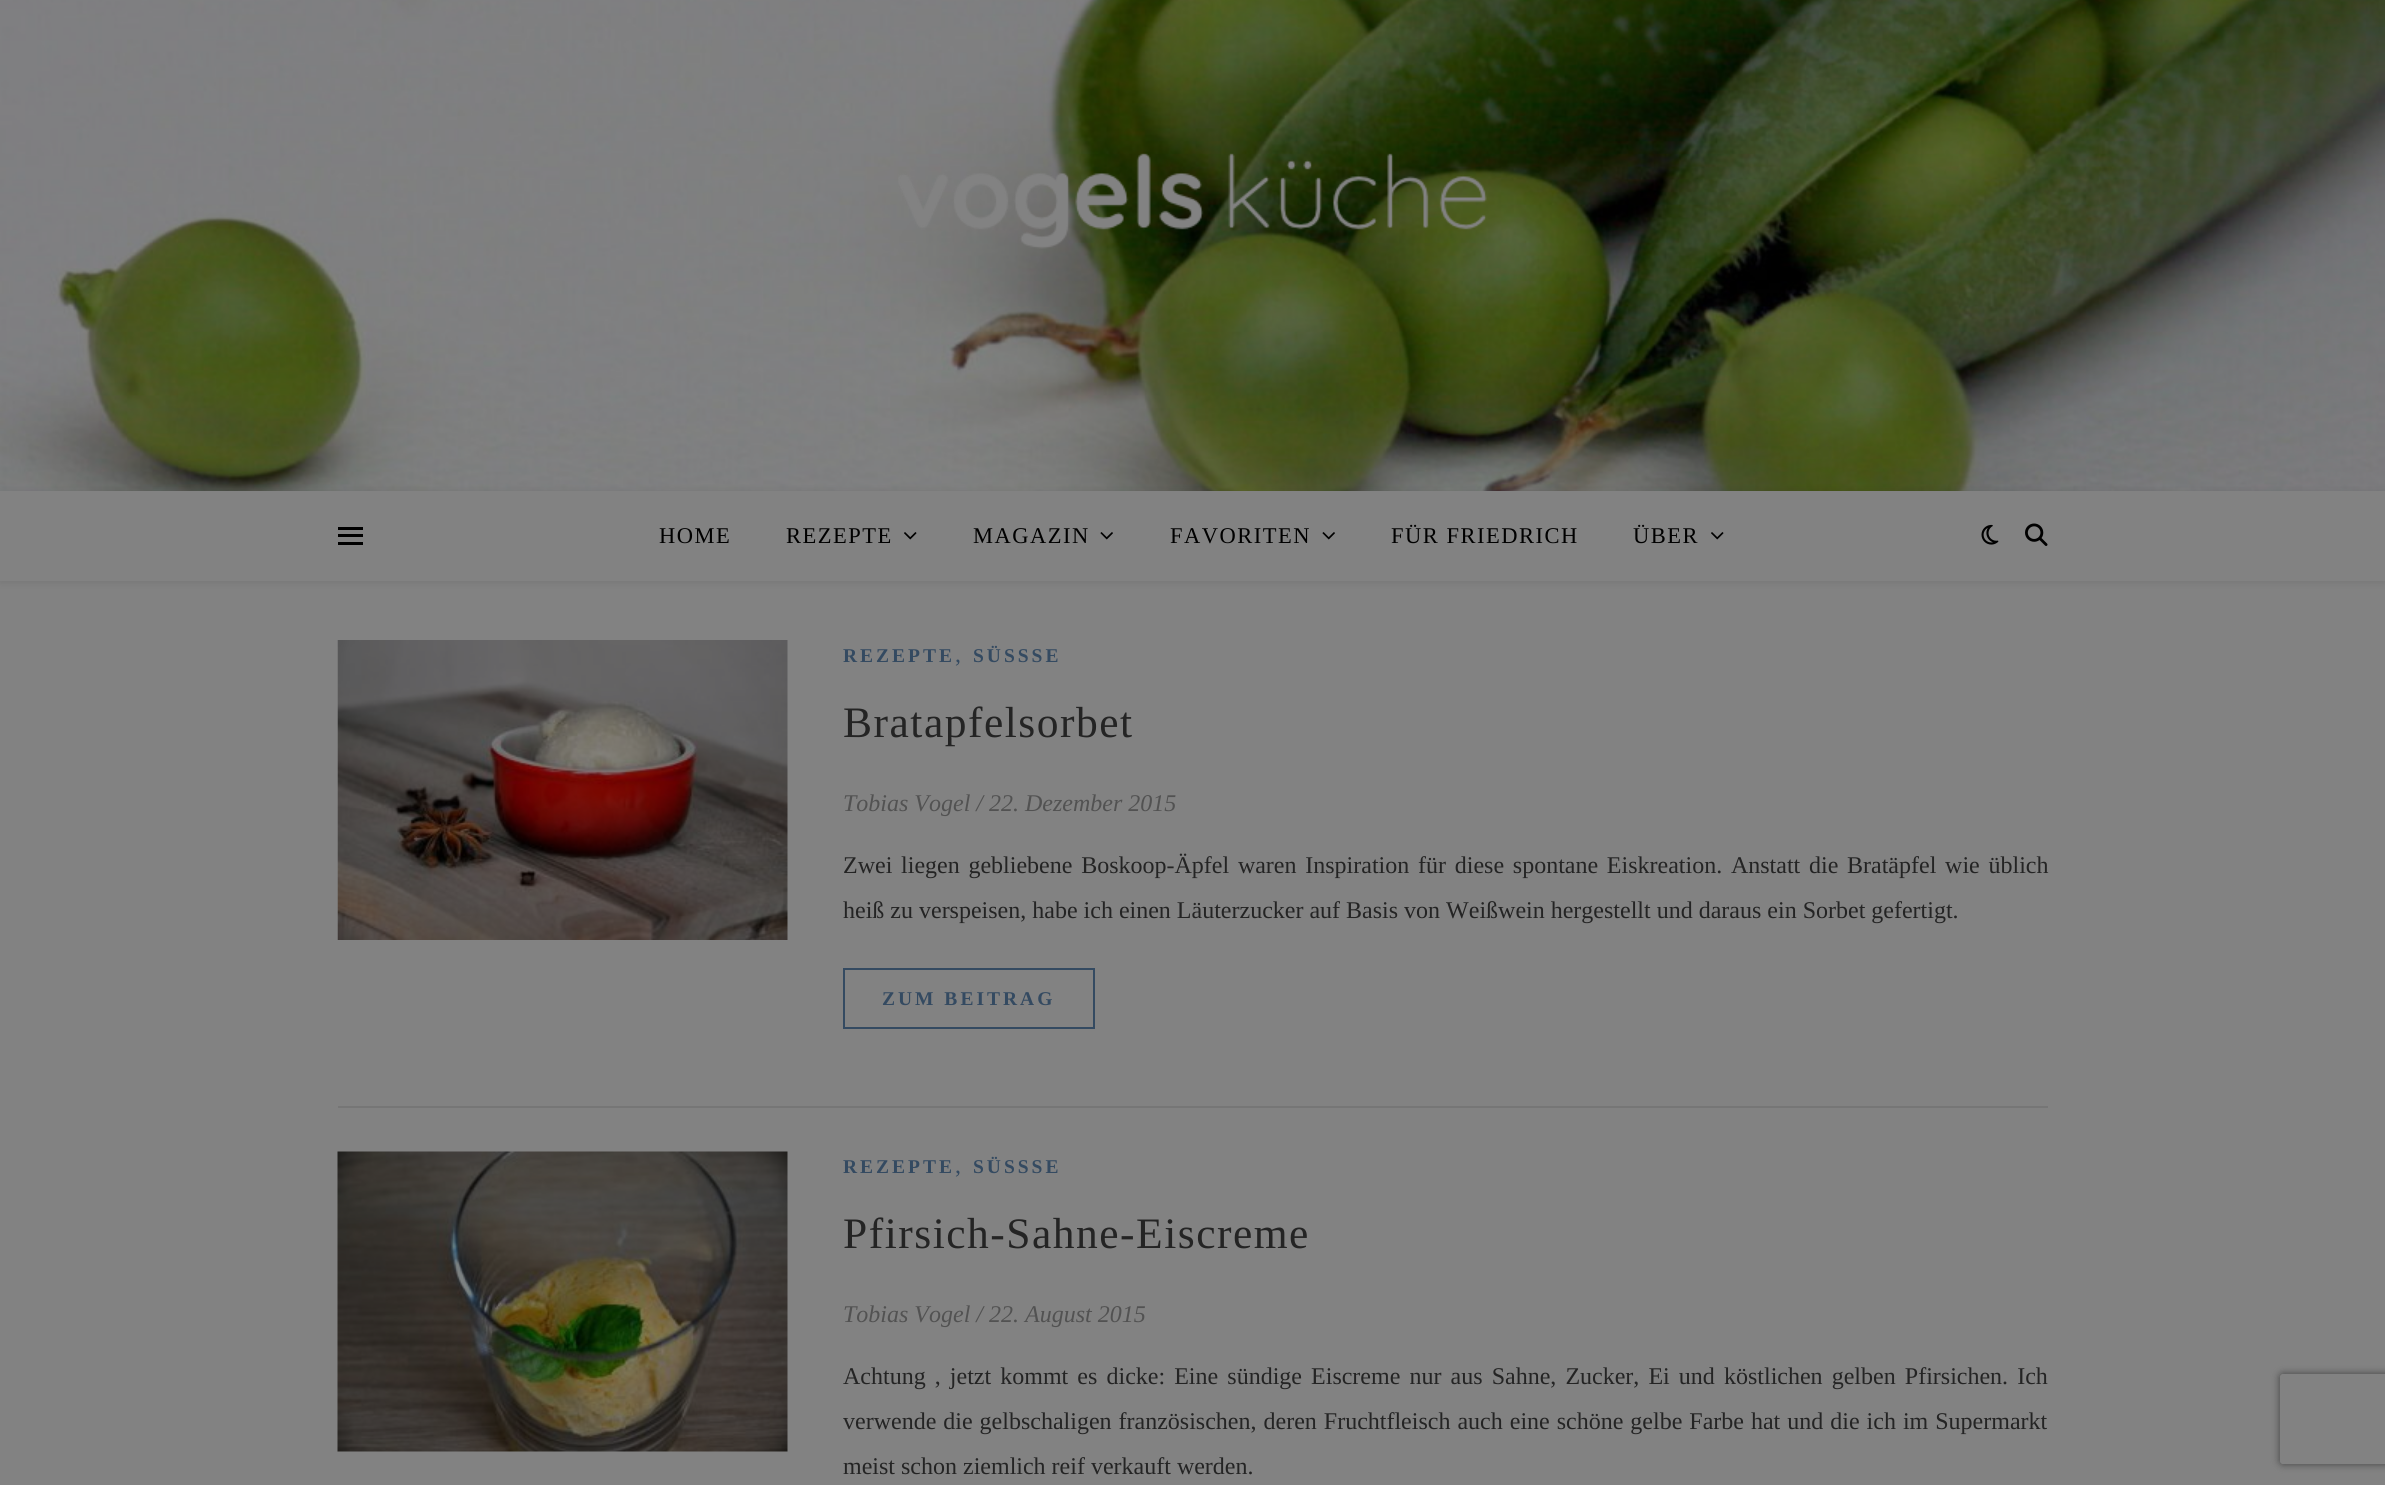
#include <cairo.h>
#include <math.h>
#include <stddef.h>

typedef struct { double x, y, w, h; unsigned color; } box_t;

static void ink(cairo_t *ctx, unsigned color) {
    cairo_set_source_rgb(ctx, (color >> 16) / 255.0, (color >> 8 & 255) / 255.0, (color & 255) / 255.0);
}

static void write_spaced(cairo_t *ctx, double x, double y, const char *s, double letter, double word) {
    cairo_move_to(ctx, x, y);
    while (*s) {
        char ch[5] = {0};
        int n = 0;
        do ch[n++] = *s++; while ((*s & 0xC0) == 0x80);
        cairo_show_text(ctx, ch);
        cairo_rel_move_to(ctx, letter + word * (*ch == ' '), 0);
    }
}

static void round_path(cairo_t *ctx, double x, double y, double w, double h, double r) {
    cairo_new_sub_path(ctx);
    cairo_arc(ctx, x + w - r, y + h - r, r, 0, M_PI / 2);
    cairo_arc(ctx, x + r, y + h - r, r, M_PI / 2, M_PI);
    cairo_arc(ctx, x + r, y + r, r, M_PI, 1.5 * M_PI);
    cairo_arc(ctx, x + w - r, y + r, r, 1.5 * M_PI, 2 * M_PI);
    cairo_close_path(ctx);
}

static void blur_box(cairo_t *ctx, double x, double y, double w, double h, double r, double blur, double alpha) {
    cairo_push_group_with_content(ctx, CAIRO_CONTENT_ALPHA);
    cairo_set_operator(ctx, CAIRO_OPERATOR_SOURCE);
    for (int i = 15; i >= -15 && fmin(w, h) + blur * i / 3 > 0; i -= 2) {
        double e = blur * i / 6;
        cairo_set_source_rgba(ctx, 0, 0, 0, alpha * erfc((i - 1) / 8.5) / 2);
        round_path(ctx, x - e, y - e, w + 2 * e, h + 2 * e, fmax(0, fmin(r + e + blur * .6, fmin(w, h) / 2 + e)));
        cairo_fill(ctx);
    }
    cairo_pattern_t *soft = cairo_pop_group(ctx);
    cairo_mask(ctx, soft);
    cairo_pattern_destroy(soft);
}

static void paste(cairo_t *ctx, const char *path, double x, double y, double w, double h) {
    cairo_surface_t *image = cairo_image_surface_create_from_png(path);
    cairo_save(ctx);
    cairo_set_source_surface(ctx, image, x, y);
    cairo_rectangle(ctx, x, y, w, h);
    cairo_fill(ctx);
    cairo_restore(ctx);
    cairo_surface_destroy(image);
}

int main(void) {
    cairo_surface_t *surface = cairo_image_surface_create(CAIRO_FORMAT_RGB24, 2385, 1485);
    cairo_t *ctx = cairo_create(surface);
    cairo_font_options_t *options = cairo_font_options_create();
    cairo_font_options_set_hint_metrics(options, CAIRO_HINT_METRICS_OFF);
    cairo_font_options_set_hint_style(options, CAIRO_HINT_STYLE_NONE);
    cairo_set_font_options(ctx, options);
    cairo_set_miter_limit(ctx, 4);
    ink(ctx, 0x828282);
    cairo_paint(ctx);
    paste(ctx, "media/1.png", 0, 0, 2385, 491);
    paste(ctx, "media/2.png", 898, 153, 589, 96);
    ink(ctx, 0x000000);
    blur_box(ctx, 0, 492, 2385, 90, 0, 4, 0.1);
    {
        static const box_t items[] = {
            {0, 491, 2385, 90, 0x828282},
            {338, 527, 25, 3, 0x000000},
            {338, 534, 25, 3, 0x000000},
            {338, 542, 25, 3, 0x000000},
        };
        for (size_t i = 0; i < sizeof items / sizeof *items; i++) {
            ink(ctx, items[i].color);
            cairo_rectangle(ctx, items[i].x, items[i].y, items[i].w, items[i].h);
            cairo_fill(ctx);
        }
    }
    cairo_select_font_face(ctx, "Liberation Serif", CAIRO_FONT_SLANT_NORMAL, CAIRO_FONT_WEIGHT_NORMAL);
    cairo_set_font_size(ctx, 22.5);
    write_spaced(ctx, 659, 543, "HOME", 1.5, 0);
    write_spaced(ctx, 786, 543, "REZEPTE", 1.5, 0);
    paste(ctx, "media/3.png", 904, 532, 13, 8);
    write_spaced(ctx, 973, 543, "MAGAZIN", 1.5, 0);
    paste(ctx, "media/4.png", 1100, 532, 13, 8);
    write_spaced(ctx, 1170, 543, "FAVORITEN", 1.5, 0);
    paste(ctx, "media/4.png", 1322, 532, 13, 8);
    write_spaced(ctx, 1391, 543, "FÜR FRIEDRICH", 1.5, 0);
    write_spaced(ctx, 1633, 543, "ÜBER", 1.5, 0);
    paste(ctx, "media/3.png", 1711, 532, 13, 8);
    paste(ctx, "media/5.png", 1981, 524, 18, 21);
    paste(ctx, "media/6.png", 2025, 523, 23, 23);
    ink(ctx, 0x767676);
    cairo_rectangle(ctx, 338, 1106, 1710, 2);
    cairo_fill(ctx);
    paste(ctx, "media/7.png", 337, 640, 451, 300);
    cairo_select_font_face(ctx, "Liberation Serif", CAIRO_FONT_SLANT_NORMAL, CAIRO_FONT_WEIGHT_BOLD);
    cairo_set_font_size(ctx, 19.5);
    ink(ctx, 0x344A61);
    write_spaced(ctx, 843, 662, "REZEPTE", 3, 0);
    cairo_select_font_face(ctx, "Liberation Serif", CAIRO_FONT_SLANT_NORMAL, CAIRO_FONT_WEIGHT_NORMAL);
    cairo_set_font_size(ctx, 24);
    cairo_move_to(ctx, 955, 662);
    cairo_show_text(ctx, ",");
    cairo_select_font_face(ctx, "Liberation Serif", CAIRO_FONT_SLANT_NORMAL, CAIRO_FONT_WEIGHT_BOLD);
    cairo_set_font_size(ctx, 19.5);
    write_spaced(ctx, 973, 662, "SÜSSSE", 3, 0);
    cairo_select_font_face(ctx, "Liberation Serif", CAIRO_FONT_SLANT_NORMAL, CAIRO_FONT_WEIGHT_NORMAL);
    cairo_set_font_size(ctx, 43.5);
    ink(ctx, 0x242424);
    write_spaced(ctx, 843, 737, "Bratapfelsorbet", 1.5, 0);
    cairo_select_font_face(ctx, "Liberation Serif", CAIRO_FONT_SLANT_ITALIC, CAIRO_FONT_WEIGHT_NORMAL);
    cairo_set_font_size(ctx, 24);
    ink(ctx, 0x525252);
    cairo_move_to(ctx, 843, 811);
    cairo_show_text(ctx, "Tobias Vogel / 22. Dezember 2015");
    cairo_select_font_face(ctx, "Liberation Serif", CAIRO_FONT_SLANT_NORMAL, CAIRO_FONT_WEIGHT_NORMAL);
    ink(ctx, 0x242424);
    write_spaced(ctx, 843, 873, "Zwei liegen gebliebene Boskoop-Äpfel waren Inspiration für diese spontane Eiskreation. Anstatt die Bratäpfel wie üblich", 0, 2.75);
    cairo_move_to(ctx, 843, 918);
    cairo_show_text(ctx, "heiß zu verspeisen, habe ich einen Läuterzucker auf Basis von Weißwein hergestellt und daraus ein Sorbet gefertigt.");
    cairo_rectangle(ctx, 844, 969, 250, 59);
    ink(ctx, 0x344A61);
    cairo_stroke(ctx);
    cairo_select_font_face(ctx, "Liberation Serif", CAIRO_FONT_SLANT_NORMAL, CAIRO_FONT_WEIGHT_BOLD);
    cairo_set_font_size(ctx, 19.5);
    write_spaced(ctx, 882, 1005, "ZUM BEITRAG", 3, 0);
    paste(ctx, "media/8.png", 337, 1151, 451, 301);
    write_spaced(ctx, 843, 1173, "REZEPTE", 3, 0);
    cairo_select_font_face(ctx, "Liberation Serif", CAIRO_FONT_SLANT_NORMAL, CAIRO_FONT_WEIGHT_NORMAL);
    cairo_set_font_size(ctx, 24);
    cairo_move_to(ctx, 955, 1173);
    cairo_show_text(ctx, ",");
    cairo_select_font_face(ctx, "Liberation Serif", CAIRO_FONT_SLANT_NORMAL, CAIRO_FONT_WEIGHT_BOLD);
    cairo_set_font_size(ctx, 19.5);
    write_spaced(ctx, 973, 1173, "SÜSSSE", 3, 0);
    cairo_select_font_face(ctx, "Liberation Serif", CAIRO_FONT_SLANT_NORMAL, CAIRO_FONT_WEIGHT_NORMAL);
    cairo_set_font_size(ctx, 43.5);
    ink(ctx, 0x242424);
    write_spaced(ctx, 843, 1248, "Pfirsich-Sahne-Eiscreme", 1.5, 0);
    cairo_select_font_face(ctx, "Liberation Serif", CAIRO_FONT_SLANT_ITALIC, CAIRO_FONT_WEIGHT_NORMAL);
    cairo_set_font_size(ctx, 24);
    ink(ctx, 0x525252);
    cairo_move_to(ctx, 843, 1322);
    cairo_show_text(ctx, "Tobias Vogel / 22. August 2015");
    cairo_select_font_face(ctx, "Liberation Serif", CAIRO_FONT_SLANT_NORMAL, CAIRO_FONT_WEIGHT_NORMAL);
    ink(ctx, 0x242424);
    write_spaced(ctx, 843, 1384, "Achtung , jetzt kommt es dicke: Eine sündige Eiscreme nur aus Sahne, Zucker, Ei und köstlichen gelben Pfirsichen. Ich", 0, 3.1);
    write_spaced(ctx, 843, 1429, "verwende die gelbschaligen französischen, deren Fruchtfleisch auch eine schöne gelbe Farbe hat und die ich im Supermarkt", 0, 1);
    cairo_move_to(ctx, 843, 1474);
    cairo_show_text(ctx, "meist schon ziemlich reif verkauft werden.");
    cairo_save(ctx);
    cairo_set_fill_rule(ctx, CAIRO_FILL_RULE_EVEN_ODD);
    cairo_new_path(ctx);
    cairo_move_to(ctx, 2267, 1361);
    cairo_line_to(ctx, 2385, 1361);
    cairo_line_to(ctx, 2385, 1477);
    cairo_line_to(ctx, 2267, 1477);
    cairo_close_path(ctx);
    cairo_move_to(ctx, 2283, 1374);
    cairo_line_to(ctx, 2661, 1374);
    cairo_curve_to(ctx, 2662.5, 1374, 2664, 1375.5, 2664, 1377);
    cairo_line_to(ctx, 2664, 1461);
    cairo_curve_to(ctx, 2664, 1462.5, 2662.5, 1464, 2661, 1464);
    cairo_line_to(ctx, 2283, 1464);
    cairo_curve_to(ctx, 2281.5, 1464, 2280, 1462.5, 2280, 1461);
    cairo_line_to(ctx, 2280, 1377);
    cairo_curve_to(ctx, 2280, 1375.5, 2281.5, 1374, 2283, 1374);
    cairo_close_path(ctx);
    cairo_clip(ctx);
    ink(ctx, 0x414141);
    blur_box(ctx, 2280, 1374, 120, 90, 3, 4, 1);
    cairo_restore(ctx);
    cairo_surface_write_to_png(surface, "image.png");
    cairo_font_options_destroy(options);
    cairo_destroy(ctx);
    cairo_surface_destroy(surface);
    return 0;
}
